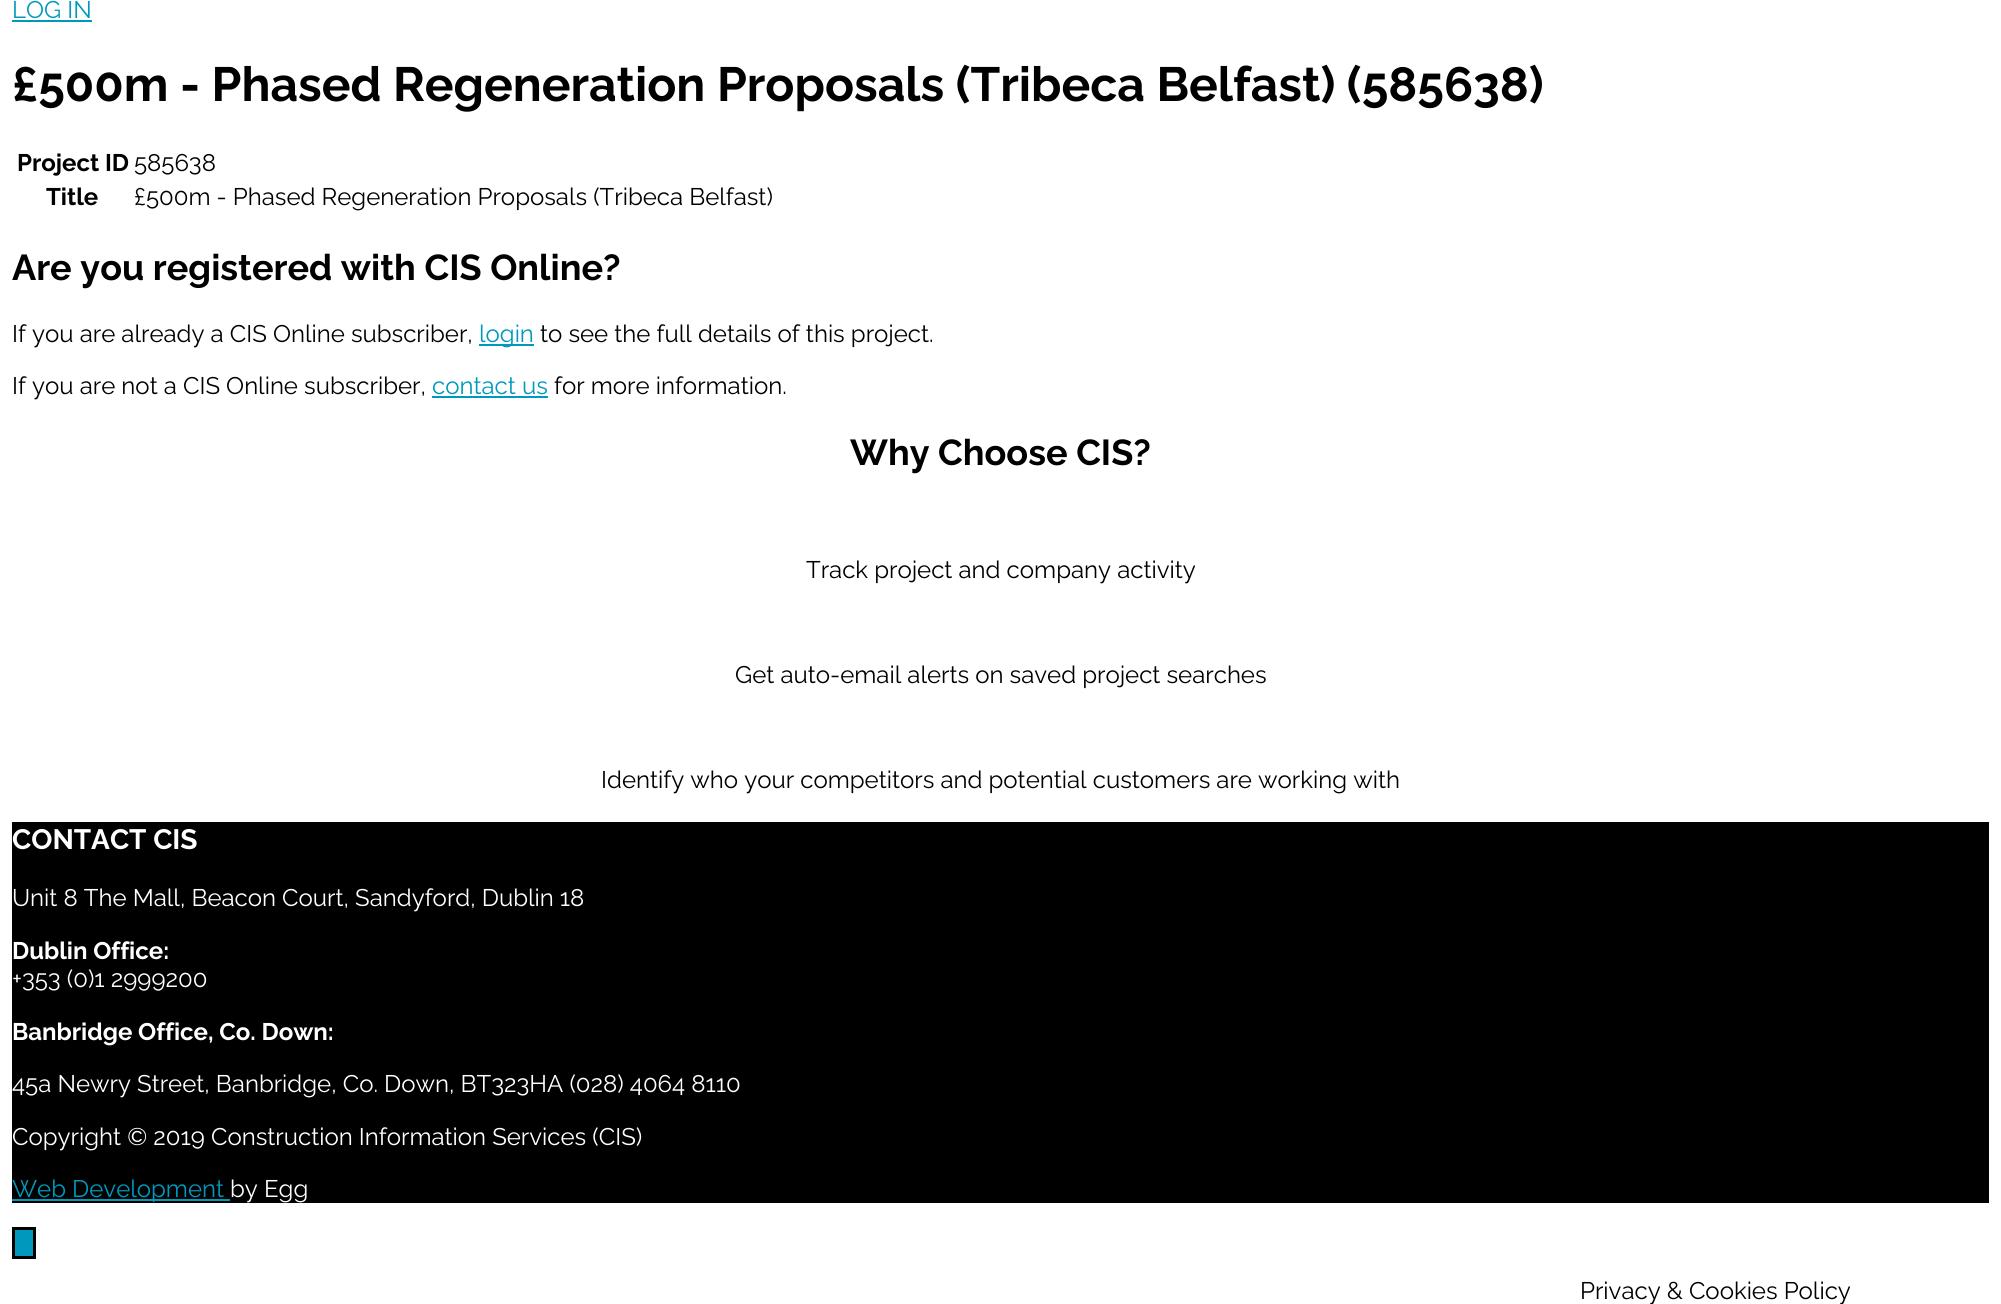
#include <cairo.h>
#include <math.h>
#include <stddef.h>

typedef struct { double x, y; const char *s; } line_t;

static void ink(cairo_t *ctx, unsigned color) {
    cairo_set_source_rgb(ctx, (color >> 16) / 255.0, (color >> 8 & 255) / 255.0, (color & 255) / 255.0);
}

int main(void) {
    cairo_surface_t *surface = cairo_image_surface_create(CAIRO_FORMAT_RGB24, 2001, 1304);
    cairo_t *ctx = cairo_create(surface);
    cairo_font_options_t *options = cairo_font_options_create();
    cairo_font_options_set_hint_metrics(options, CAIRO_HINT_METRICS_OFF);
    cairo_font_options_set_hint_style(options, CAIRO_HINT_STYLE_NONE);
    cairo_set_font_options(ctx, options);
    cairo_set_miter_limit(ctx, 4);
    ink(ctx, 0xFFFFFF);
    cairo_paint(ctx);
    cairo_select_font_face(ctx, "Raleway", CAIRO_FONT_SLANT_NORMAL, CAIRO_FONT_WEIGHT_NORMAL);
    cairo_set_font_size(ctx, 24);
    ink(ctx, 0x0099BD);
    cairo_move_to(ctx, 12, 18);
    cairo_show_text(ctx, "LOG IN");
    cairo_rectangle(ctx, 12, 20, 80, 2);
    cairo_fill(ctx);
    cairo_select_font_face(ctx, "Raleway", CAIRO_FONT_SLANT_NORMAL, CAIRO_FONT_WEIGHT_BOLD);
    cairo_set_font_size(ctx, 48);
    ink(ctx, 0x000000);
    cairo_move_to(ctx, 12, 101);
    cairo_show_text(ctx, "£500m - Phased Regeneration Proposals (Tribeca Belfast) (585638)");
    cairo_set_font_size(ctx, 24);
    cairo_move_to(ctx, 17, 171);
    cairo_show_text(ctx, "Project ID");
    cairo_select_font_face(ctx, "Raleway", CAIRO_FONT_SLANT_NORMAL, CAIRO_FONT_WEIGHT_NORMAL);
    cairo_move_to(ctx, 134, 171);
    cairo_show_text(ctx, "585638");
    cairo_select_font_face(ctx, "Raleway", CAIRO_FONT_SLANT_NORMAL, CAIRO_FONT_WEIGHT_BOLD);
    cairo_move_to(ctx, 46, 205);
    cairo_show_text(ctx, "Title");
    cairo_select_font_face(ctx, "Raleway", CAIRO_FONT_SLANT_NORMAL, CAIRO_FONT_WEIGHT_NORMAL);
    cairo_move_to(ctx, 134, 205);
    cairo_show_text(ctx, "£500m - Phased Regeneration Proposals (Tribeca Belfast)");
    cairo_select_font_face(ctx, "Raleway", CAIRO_FONT_SLANT_NORMAL, CAIRO_FONT_WEIGHT_BOLD);
    cairo_set_font_size(ctx, 36);
    cairo_move_to(ctx, 12, 280);
    cairo_show_text(ctx, "Are you registered with CIS Online?");
    cairo_select_font_face(ctx, "Raleway", CAIRO_FONT_SLANT_NORMAL, CAIRO_FONT_WEIGHT_NORMAL);
    cairo_set_font_size(ctx, 24);
    cairo_move_to(ctx, 12, 342);
    cairo_show_text(ctx, "If you are already a CIS Online subscriber,");
    ink(ctx, 0x0099BD);
    cairo_rectangle(ctx, 479, 344, 55, 2);
    cairo_fill(ctx);
    cairo_move_to(ctx, 479, 342);
    cairo_show_text(ctx, "login");
    ink(ctx, 0x000000);
    cairo_move_to(ctx, 540, 342);
    cairo_show_text(ctx, "to see the full details of this project.");
    cairo_move_to(ctx, 12, 394);
    cairo_show_text(ctx, "If you are not a CIS Online subscriber,");
    ink(ctx, 0x0099BD);
    cairo_move_to(ctx, 432, 394);
    cairo_show_text(ctx, "contact us");
    cairo_rectangle(ctx, 432, 396, 116, 2);
    cairo_fill(ctx);
    ink(ctx, 0x000000);
    cairo_move_to(ctx, 554, 394);
    cairo_show_text(ctx, "for more information.");
    cairo_select_font_face(ctx, "Raleway", CAIRO_FONT_SLANT_NORMAL, CAIRO_FONT_WEIGHT_BOLD);
    cairo_set_font_size(ctx, 36);
    cairo_move_to(ctx, 850, 465);
    cairo_show_text(ctx, "Why Choose CIS?");
    cairo_select_font_face(ctx, "Raleway", CAIRO_FONT_SLANT_NORMAL, CAIRO_FONT_WEIGHT_NORMAL);
    cairo_set_font_size(ctx, 24);
    {
        static const line_t items[] = {
            {806, 578, "Track project and company activity"},
            {735, 683, "Get auto-email alerts on saved project searches"},
            {601, 788, "Identify who your competitors and potential customers are working with"},
        };
        for (size_t i = 0; i < sizeof items / sizeof *items; i++) {
            cairo_move_to(ctx, items[i].x, items[i].y);
            cairo_show_text(ctx, items[i].s);
        }
    }
    cairo_rectangle(ctx, 12, 822, 1977, 381);
    cairo_fill(ctx);
    cairo_select_font_face(ctx, "Raleway", CAIRO_FONT_SLANT_NORMAL, CAIRO_FONT_WEIGHT_BOLD);
    cairo_set_font_size(ctx, 28);
    ink(ctx, 0xFFFFFF);
    cairo_move_to(ctx, 12, 849);
    cairo_show_text(ctx, "CONTACT CIS");
    cairo_select_font_face(ctx, "Raleway", CAIRO_FONT_SLANT_NORMAL, CAIRO_FONT_WEIGHT_NORMAL);
    cairo_set_font_size(ctx, 24);
    cairo_move_to(ctx, 12, 906);
    cairo_show_text(ctx, "Unit 8 The Mall, Beacon Court, Sandyford, Dublin 18");
    cairo_select_font_face(ctx, "Raleway", CAIRO_FONT_SLANT_NORMAL, CAIRO_FONT_WEIGHT_BOLD);
    cairo_move_to(ctx, 12, 959);
    cairo_show_text(ctx, "Dublin Office:");
    cairo_select_font_face(ctx, "Raleway", CAIRO_FONT_SLANT_NORMAL, CAIRO_FONT_WEIGHT_NORMAL);
    cairo_move_to(ctx, 12, 987);
    cairo_show_text(ctx, "+353 (0)1 2999200");
    cairo_select_font_face(ctx, "Raleway", CAIRO_FONT_SLANT_NORMAL, CAIRO_FONT_WEIGHT_BOLD);
    cairo_move_to(ctx, 12, 1040);
    cairo_show_text(ctx, "Banbridge Office, Co. Down:");
    cairo_select_font_face(ctx, "Raleway", CAIRO_FONT_SLANT_NORMAL, CAIRO_FONT_WEIGHT_NORMAL);
    cairo_move_to(ctx, 12, 1092);
    cairo_show_text(ctx, "45a Newry Street, Banbridge, Co. Down, BT323HA (028) 4064 8110");
    cairo_move_to(ctx, 12, 1145);
    cairo_show_text(ctx, "Copyright © 2019 Construction Information Services (CIS)");
    ink(ctx, 0x0099BD);
    cairo_rectangle(ctx, 12, 1199, 218, 2);
    cairo_fill(ctx);
    cairo_move_to(ctx, 12, 1197);
    cairo_show_text(ctx, "Web Development");
    ink(ctx, 0xFFFFFF);
    cairo_move_to(ctx, 230, 1197);
    cairo_show_text(ctx, "by Egg");
    ink(ctx, 0x0099BD);
    cairo_rectangle(ctx, 13.5, 1228.5, 21, 29);
    cairo_fill_preserve(ctx);
    ink(ctx, 0x000000);
    cairo_set_line_width(ctx, 3);
    cairo_stroke(ctx);
    cairo_move_to(ctx, 1580, 1299);
    cairo_show_text(ctx, "Privacy & Cookies Policy");
    cairo_surface_write_to_png(surface, "image.png");
    cairo_font_options_destroy(options);
    cairo_destroy(ctx);
    cairo_surface_destroy(surface);
    return 0;
}
